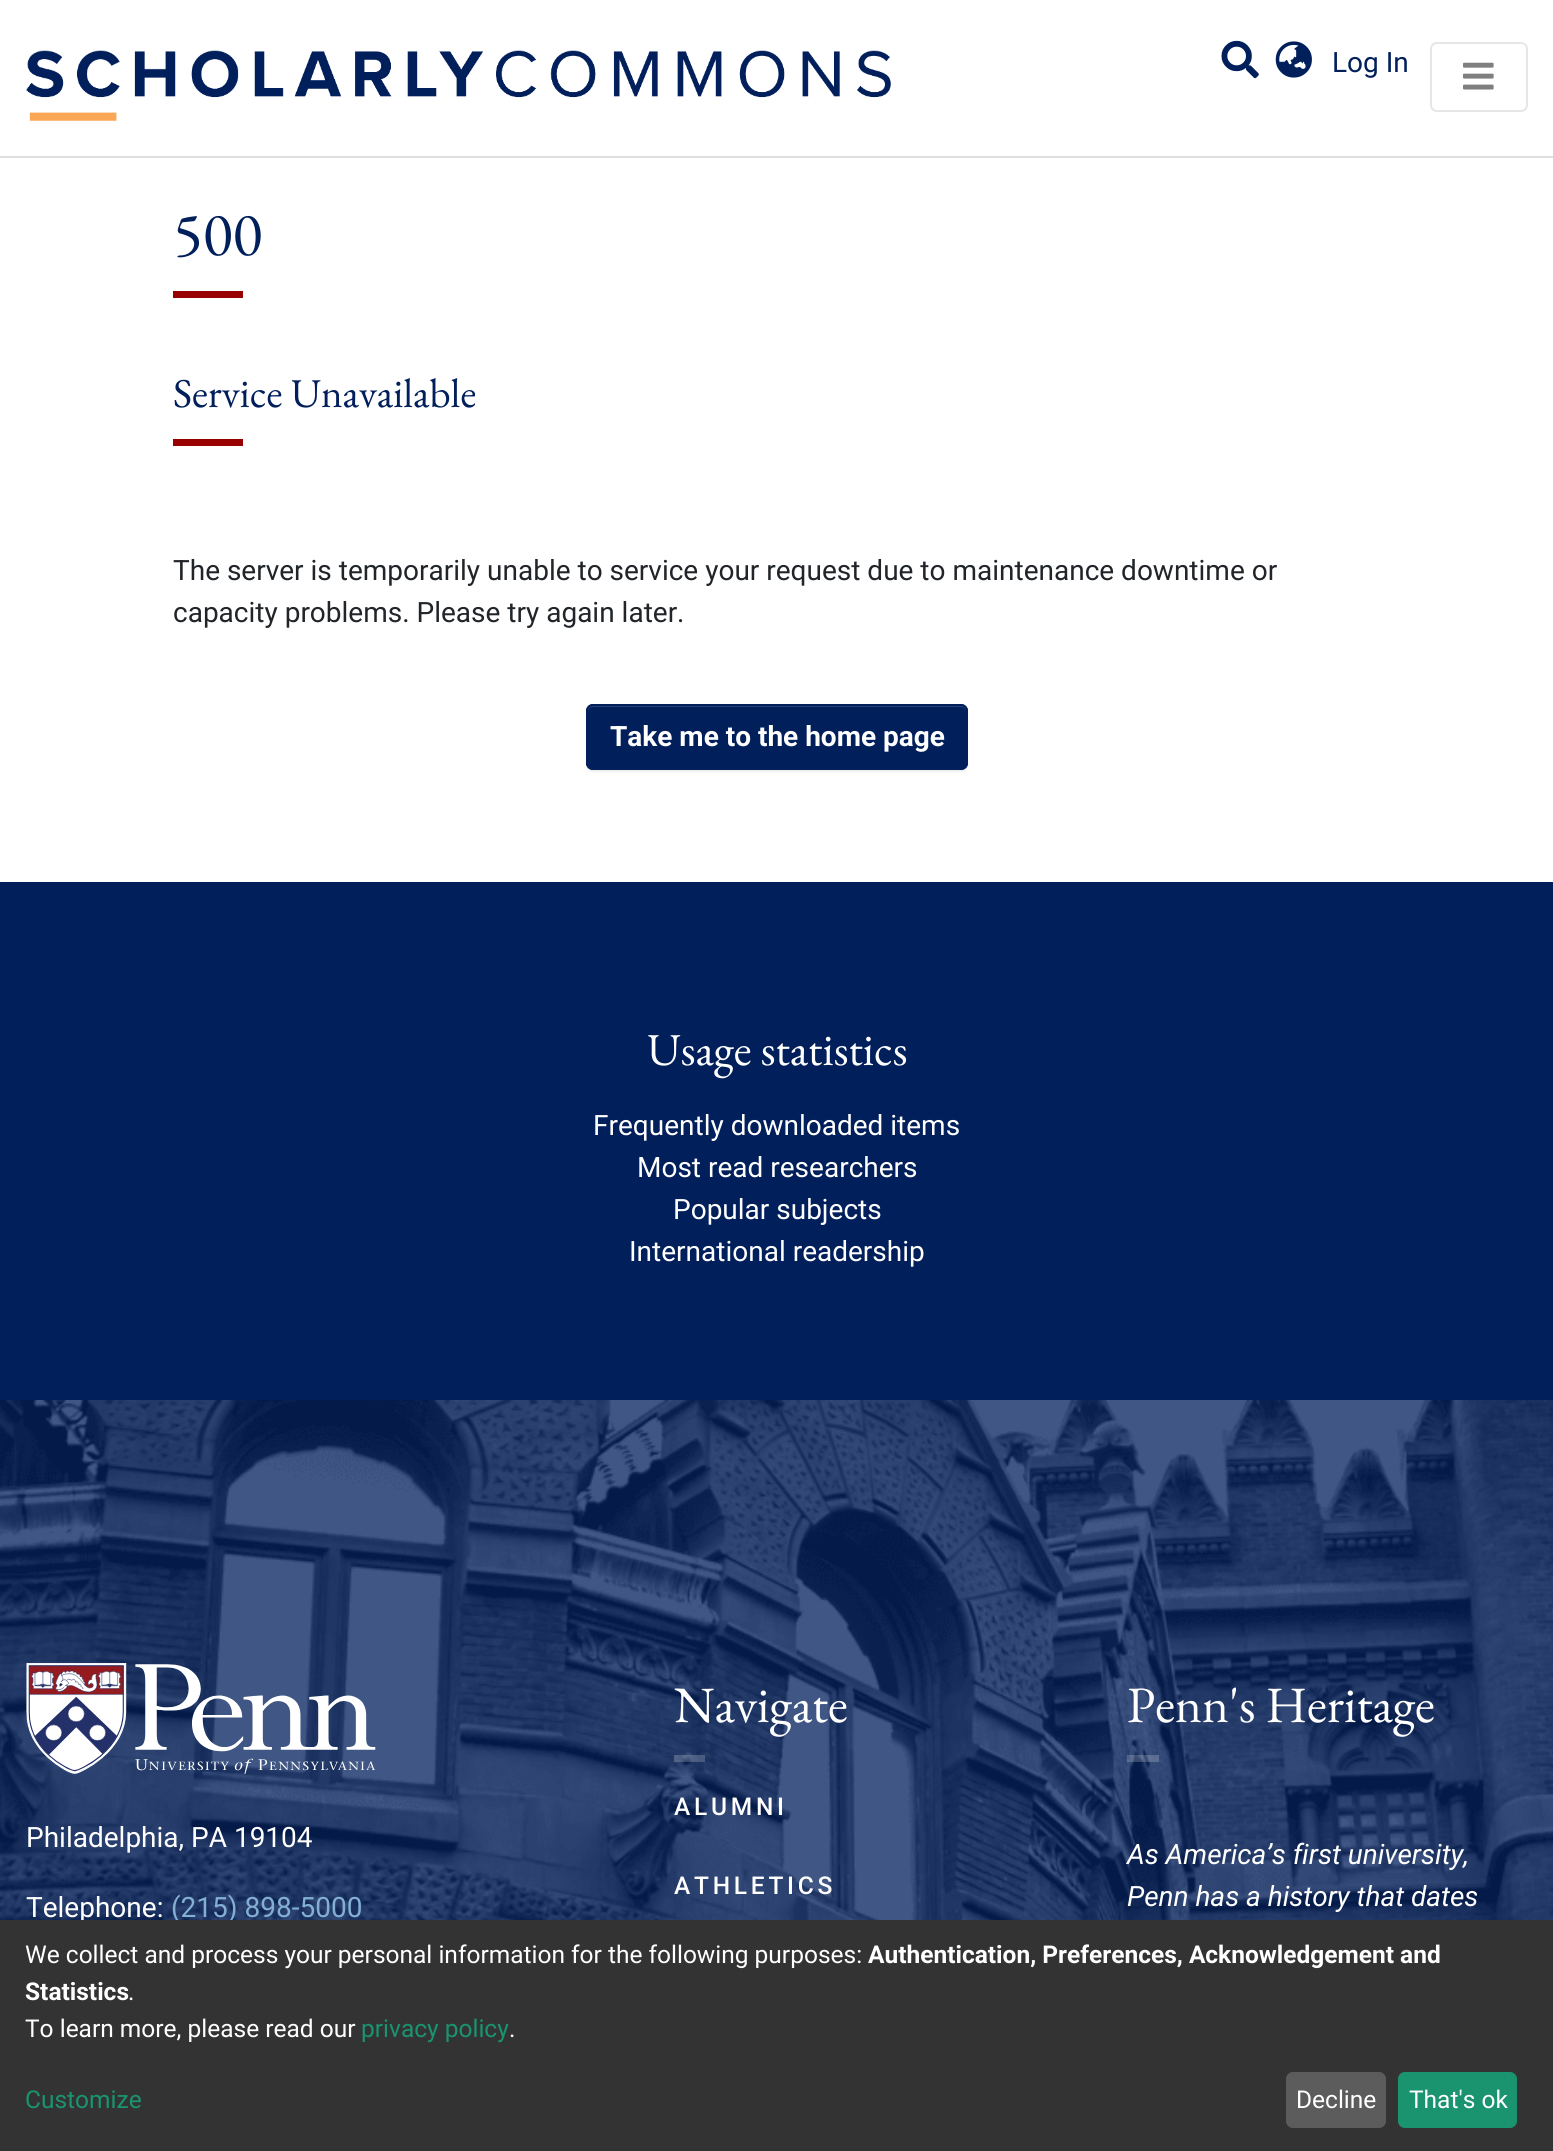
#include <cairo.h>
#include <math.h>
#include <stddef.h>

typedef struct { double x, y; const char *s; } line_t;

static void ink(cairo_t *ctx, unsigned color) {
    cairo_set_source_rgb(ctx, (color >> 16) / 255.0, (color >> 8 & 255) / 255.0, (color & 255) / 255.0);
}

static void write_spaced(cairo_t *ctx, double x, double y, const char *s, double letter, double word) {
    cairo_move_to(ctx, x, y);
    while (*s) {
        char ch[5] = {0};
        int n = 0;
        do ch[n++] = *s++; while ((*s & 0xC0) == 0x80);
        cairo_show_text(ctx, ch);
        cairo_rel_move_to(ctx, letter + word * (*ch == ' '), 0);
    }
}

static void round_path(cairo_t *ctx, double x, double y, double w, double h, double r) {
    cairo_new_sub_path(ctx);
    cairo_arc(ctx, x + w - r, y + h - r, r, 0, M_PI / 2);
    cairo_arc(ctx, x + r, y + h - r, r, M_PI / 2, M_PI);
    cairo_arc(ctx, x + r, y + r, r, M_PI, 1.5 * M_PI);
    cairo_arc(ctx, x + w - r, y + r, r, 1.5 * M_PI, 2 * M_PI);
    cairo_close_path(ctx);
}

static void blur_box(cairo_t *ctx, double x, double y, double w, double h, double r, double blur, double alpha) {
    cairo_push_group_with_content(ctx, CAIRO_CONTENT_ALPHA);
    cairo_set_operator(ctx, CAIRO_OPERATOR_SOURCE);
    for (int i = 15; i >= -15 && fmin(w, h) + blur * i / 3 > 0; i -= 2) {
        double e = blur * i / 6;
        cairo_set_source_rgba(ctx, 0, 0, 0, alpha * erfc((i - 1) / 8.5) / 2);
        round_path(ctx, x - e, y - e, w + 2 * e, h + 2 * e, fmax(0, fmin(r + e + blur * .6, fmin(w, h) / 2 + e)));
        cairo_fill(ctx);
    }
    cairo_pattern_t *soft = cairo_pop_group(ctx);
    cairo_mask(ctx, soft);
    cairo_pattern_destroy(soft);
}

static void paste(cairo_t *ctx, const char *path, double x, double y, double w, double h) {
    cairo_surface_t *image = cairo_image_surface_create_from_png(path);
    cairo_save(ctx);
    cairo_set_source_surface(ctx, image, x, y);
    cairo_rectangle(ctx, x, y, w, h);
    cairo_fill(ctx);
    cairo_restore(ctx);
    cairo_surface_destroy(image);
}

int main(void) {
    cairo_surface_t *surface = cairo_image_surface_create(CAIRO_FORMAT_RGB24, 1553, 2151);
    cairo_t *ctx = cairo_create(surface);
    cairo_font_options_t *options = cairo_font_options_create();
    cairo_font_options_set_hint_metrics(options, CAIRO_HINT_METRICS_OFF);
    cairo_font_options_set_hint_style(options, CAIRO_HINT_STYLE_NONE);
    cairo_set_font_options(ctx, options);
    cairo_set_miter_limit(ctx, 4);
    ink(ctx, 0xFFFFFF);
    cairo_paint(ctx);
    paste(ctx, "media/1.png", 26, 50, 865, 71);
    paste(ctx, "media/2.png", 1221, 40, 38, 39);
    paste(ctx, "media/3.png", 1275, 41, 37, 37);
    cairo_select_font_face(ctx, "Roboto", CAIRO_FONT_SLANT_NORMAL, CAIRO_FONT_WEIGHT_NORMAL);
    cairo_set_font_size(ctx, 28);
    ink(ctx, 0x011F5B);
    cairo_move_to(ctx, 1332, 72);
    cairo_show_text(ctx, "Log In");
    round_path(ctx, 1431, 43, 96, 68, 6);
    ink(ctx, 0xE6E6E6);
    cairo_stroke(ctx);
    paste(ctx, "media/4.png", 1463, 62, 31, 28);
    ink(ctx, 0xDFDFDF);
    cairo_rectangle(ctx, 0, 156, 1553, 2);
    cairo_fill(ctx);
    cairo_select_font_face(ctx, "EB Garamond", CAIRO_FONT_SLANT_NORMAL, CAIRO_FONT_WEIGHT_NORMAL);
    cairo_set_font_size(ctx, 62);
    ink(ctx, 0x011F5B);
    cairo_move_to(ctx, 173, 255);
    cairo_show_text(ctx, "500");
    ink(ctx, 0x990000);
    cairo_rectangle(ctx, 173, 291, 70, 7);
    cairo_fill(ctx);
    cairo_set_font_size(ctx, 41);
    ink(ctx, 0x011F5B);
    cairo_move_to(ctx, 173, 407);
    cairo_show_text(ctx, "Service Unavailable");
    ink(ctx, 0x990000);
    cairo_rectangle(ctx, 173, 439, 70, 7);
    cairo_fill(ctx);
    cairo_select_font_face(ctx, "Roboto", CAIRO_FONT_SLANT_NORMAL, CAIRO_FONT_WEIGHT_NORMAL);
    cairo_set_font_size(ctx, 28);
    ink(ctx, 0x212529);
    cairo_move_to(ctx, 173, 580);
    cairo_show_text(ctx, "The server is temporarily unable to service your request due to maintenance downtime or");
    cairo_move_to(ctx, 173, 622);
    cairo_show_text(ctx, "capacity problems. Please try again later.");
    ink(ctx, 0x000000);
    blur_box(ctx, 586, 705, 382, 67, 7, 1, 0.07);
    ink(ctx, 0x011F5B);
    round_path(ctx, 586, 704, 382, 66, 7);
    cairo_fill(ctx);
    ink(ctx, 0x274174);
    cairo_new_path(ctx);
    cairo_move_to(ctx, 593, 707);
    cairo_line_to(ctx, 961, 707);
    cairo_curve_to(ctx, 964, 707, 966, 709, 966, 712);
    cairo_line_to(ctx, 966, 710);
    cairo_curve_to(ctx, 966, 707, 964, 705, 961, 705);
    cairo_line_to(ctx, 593, 705);
    cairo_curve_to(ctx, 590, 705, 588, 707, 588, 710);
    cairo_line_to(ctx, 588, 712);
    cairo_curve_to(ctx, 588, 709, 590, 707, 593, 707);
    cairo_close_path(ctx);
    cairo_fill(ctx);
    round_path(ctx, 587, 705, 380, 64, 6);
    ink(ctx, 0x011F5B);
    cairo_stroke(ctx);
    cairo_select_font_face(ctx, "Roboto", CAIRO_FONT_SLANT_NORMAL, CAIRO_FONT_WEIGHT_BOLD);
    ink(ctx, 0xFFFFFF);
    cairo_move_to(ctx, 610, 746);
    cairo_show_text(ctx, "Take me to the home page");
    ink(ctx, 0x011F5B);
    cairo_rectangle(ctx, 0, 882, 1553, 1038);
    cairo_fill(ctx);
    cairo_select_font_face(ctx, "EB Garamond", CAIRO_FONT_SLANT_NORMAL, CAIRO_FONT_WEIGHT_NORMAL);
    cairo_set_font_size(ctx, 45.75);
    ink(ctx, 0xFFFFFF);
    cairo_move_to(ctx, 647, 1065);
    cairo_show_text(ctx, "Usage statistics");
    cairo_select_font_face(ctx, "Roboto", CAIRO_FONT_SLANT_NORMAL, CAIRO_FONT_WEIGHT_NORMAL);
    cairo_set_font_size(ctx, 28);
    {
        static const line_t items[] = {
            {593, 1135, "Frequently downloaded items"},
            {637, 1177, "Most read researchers"},
            {673, 1219, "Popular subjects"},
            {629, 1261, "International readership"},
        };
        for (size_t i = 0; i < sizeof items / sizeof *items; i++) {
            cairo_move_to(ctx, items[i].x, items[i].y);
            cairo_show_text(ctx, items[i].s);
        }
    }
    paste(ctx, "media/5.png", 0, 1400, 1553, 520);
    paste(ctx, "media/6.png", 26, 1663, 350, 111);
    cairo_move_to(ctx, 26, 1847);
    cairo_show_text(ctx, "Philadelphia, PA 19104");
    cairo_move_to(ctx, 26, 1917);
    cairo_show_text(ctx, "Telephone:");
    ink(ctx, 0x82AFD3);
    cairo_move_to(ctx, 171, 1917);
    cairo_show_text(ctx, "(215) 898-5000");
    cairo_select_font_face(ctx, "EB Garamond", CAIRO_FONT_SLANT_NORMAL, CAIRO_FONT_WEIGHT_NORMAL);
    cairo_set_font_size(ctx, 51);
    ink(ctx, 0xFFFFFF);
    cairo_move_to(ctx, 674, 1722);
    cairo_show_text(ctx, "Navigate");
    cairo_set_source_rgba(ctx, 1, 1, 1, 0.2);
    cairo_rectangle(ctx, 674, 1755, 31, 7);
    cairo_fill(ctx);
    cairo_select_font_face(ctx, "Roboto Medium", CAIRO_FONT_SLANT_NORMAL, CAIRO_FONT_WEIGHT_NORMAL);
    cairo_set_font_size(ctx, 24.5);
    ink(ctx, 0xFFFFFF);
    write_spaced(ctx, 674, 1815, "ALUMNI", 3.75, 0);
    write_spaced(ctx, 674, 1894, "ATHLETICS", 3.75, 0);
    cairo_select_font_face(ctx, "EB Garamond", CAIRO_FONT_SLANT_NORMAL, CAIRO_FONT_WEIGHT_NORMAL);
    cairo_set_font_size(ctx, 51);
    cairo_move_to(ctx, 1127, 1722);
    cairo_show_text(ctx, "Penn's Heritage");
    cairo_set_source_rgba(ctx, 1, 1, 1, 0.2);
    cairo_rectangle(ctx, 1127, 1755, 32, 7);
    cairo_fill(ctx);
    cairo_select_font_face(ctx, "Roboto", CAIRO_FONT_SLANT_ITALIC, CAIRO_FONT_WEIGHT_NORMAL);
    cairo_set_font_size(ctx, 28);
    ink(ctx, 0xFFFFFF);
    cairo_move_to(ctx, 1127, 1864);
    cairo_show_text(ctx, "As America’s first university,");
    cairo_move_to(ctx, 1127, 1906);
    cairo_show_text(ctx, "Penn has a history that dates");
    ink(ctx, 0x333333);
    cairo_rectangle(ctx, 0, 1920, 1553, 231);
    cairo_fill(ctx);
    cairo_select_font_face(ctx, "Roboto", CAIRO_FONT_SLANT_NORMAL, CAIRO_FONT_WEIGHT_NORMAL);
    cairo_set_font_size(ctx, 24.5);
    ink(ctx, 0xFFFFFF);
    cairo_move_to(ctx, 25, 1963);
    cairo_show_text(ctx, "We collect and process your personal information for the following purposes:");
    cairo_select_font_face(ctx, "Roboto", CAIRO_FONT_SLANT_NORMAL, CAIRO_FONT_WEIGHT_BOLD);
    cairo_move_to(ctx, 868, 1963);
    cairo_show_text(ctx, "Authentication, Preferences, Acknowledgement and");
    cairo_move_to(ctx, 25, 2000);
    cairo_show_text(ctx, "Statistics");
    cairo_select_font_face(ctx, "Roboto", CAIRO_FONT_SLANT_NORMAL, CAIRO_FONT_WEIGHT_NORMAL);
    cairo_move_to(ctx, 128, 2000);
    cairo_show_text(ctx, ".");
    cairo_move_to(ctx, 25, 2037);
    cairo_show_text(ctx, "To learn more, please read our");
    ink(ctx, 0x1A936F);
    cairo_move_to(ctx, 361, 2037);
    cairo_show_text(ctx, "privacy policy");
    ink(ctx, 0xFFFFFF);
    cairo_move_to(ctx, 509, 2037);
    cairo_show_text(ctx, ".");
    ink(ctx, 0x1A936F);
    cairo_move_to(ctx, 25, 2108);
    cairo_show_text(ctx, "Customize");
    ink(ctx, 0x5C5C5C);
    round_path(ctx, 1286, 2072, 100, 56, 7);
    cairo_fill(ctx);
    ink(ctx, 0xFFFFFF);
    cairo_move_to(ctx, 1296, 2108);
    cairo_show_text(ctx, "Decline");
    ink(ctx, 0x1A936F);
    round_path(ctx, 1398, 2072, 119, 56, 7);
    cairo_fill(ctx);
    ink(ctx, 0xFFFFFF);
    cairo_move_to(ctx, 1409, 2108);
    cairo_show_text(ctx, "That's ok");
    cairo_surface_write_to_png(surface, "image.png");
    cairo_font_options_destroy(options);
    cairo_destroy(ctx);
    cairo_surface_destroy(surface);
    return 0;
}
